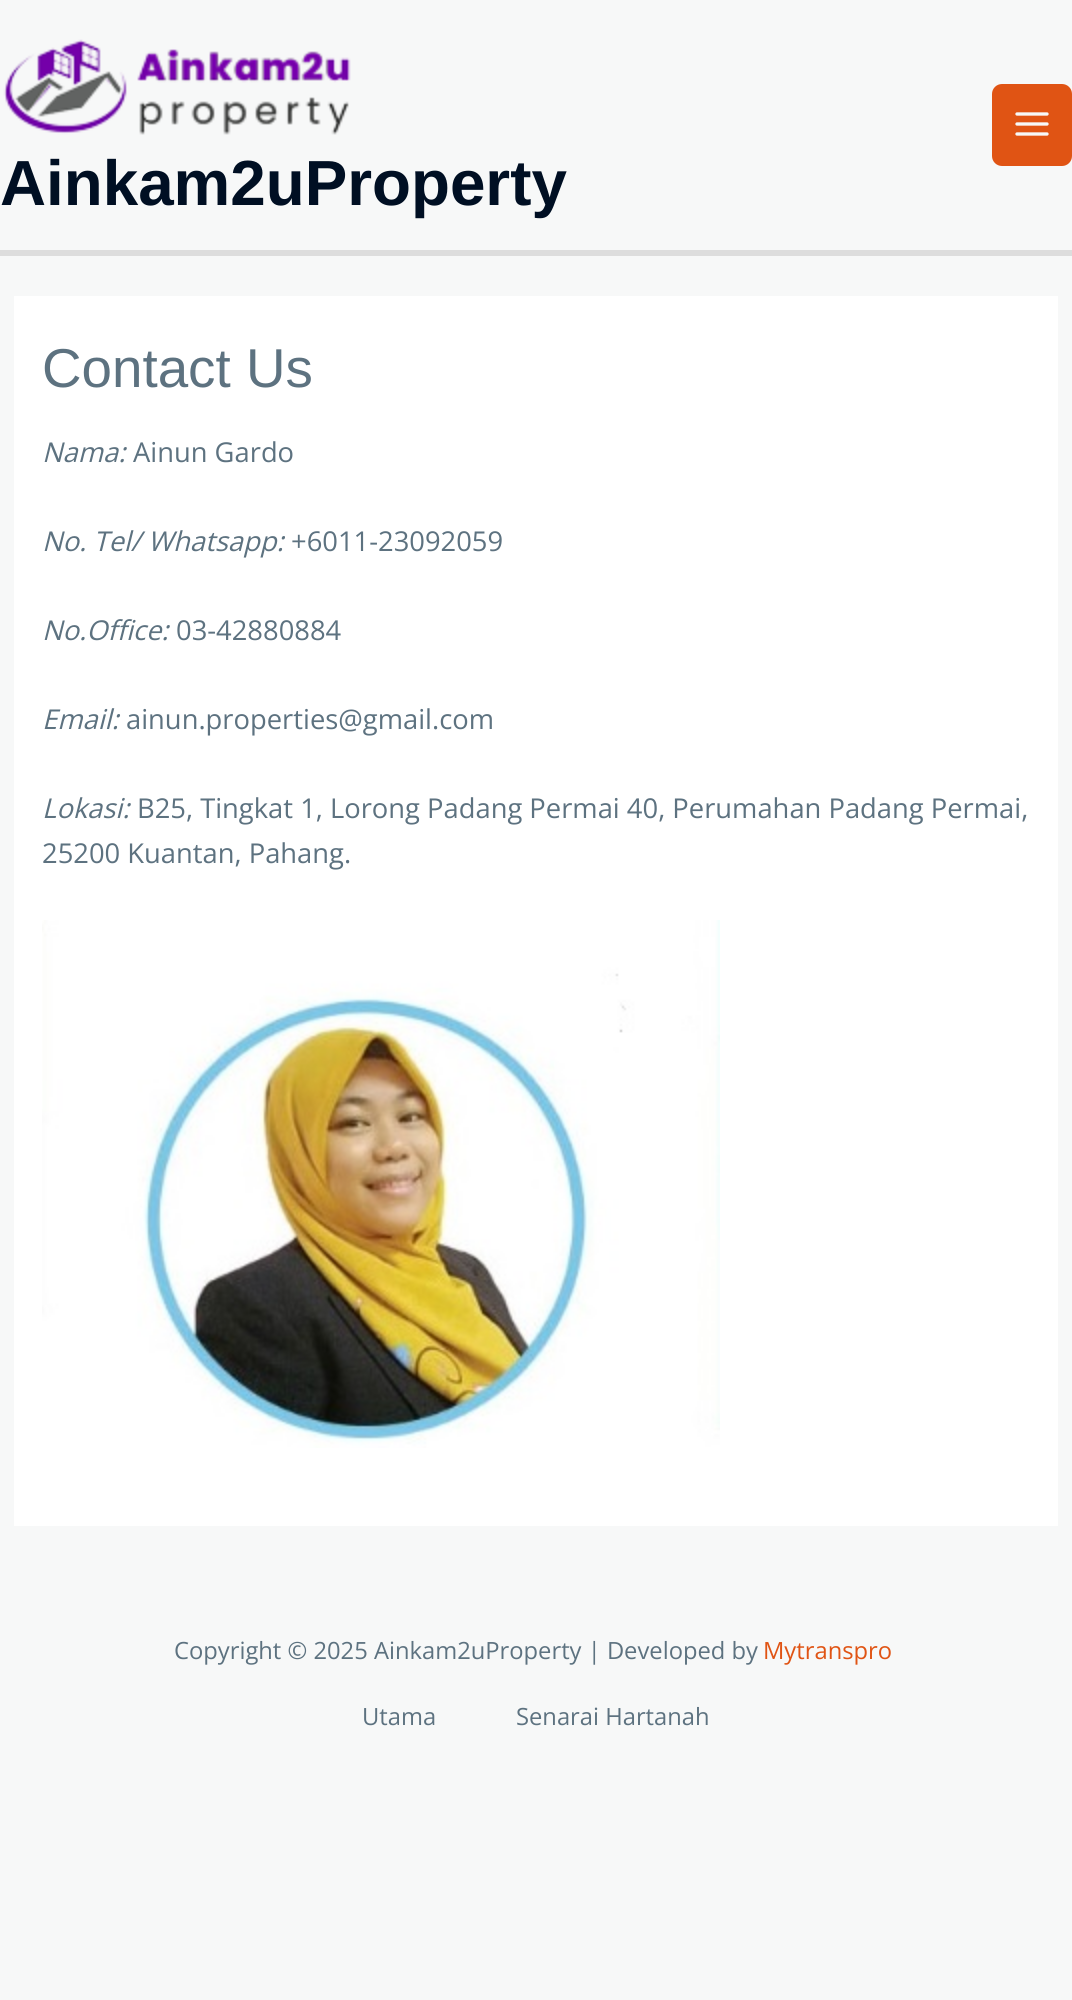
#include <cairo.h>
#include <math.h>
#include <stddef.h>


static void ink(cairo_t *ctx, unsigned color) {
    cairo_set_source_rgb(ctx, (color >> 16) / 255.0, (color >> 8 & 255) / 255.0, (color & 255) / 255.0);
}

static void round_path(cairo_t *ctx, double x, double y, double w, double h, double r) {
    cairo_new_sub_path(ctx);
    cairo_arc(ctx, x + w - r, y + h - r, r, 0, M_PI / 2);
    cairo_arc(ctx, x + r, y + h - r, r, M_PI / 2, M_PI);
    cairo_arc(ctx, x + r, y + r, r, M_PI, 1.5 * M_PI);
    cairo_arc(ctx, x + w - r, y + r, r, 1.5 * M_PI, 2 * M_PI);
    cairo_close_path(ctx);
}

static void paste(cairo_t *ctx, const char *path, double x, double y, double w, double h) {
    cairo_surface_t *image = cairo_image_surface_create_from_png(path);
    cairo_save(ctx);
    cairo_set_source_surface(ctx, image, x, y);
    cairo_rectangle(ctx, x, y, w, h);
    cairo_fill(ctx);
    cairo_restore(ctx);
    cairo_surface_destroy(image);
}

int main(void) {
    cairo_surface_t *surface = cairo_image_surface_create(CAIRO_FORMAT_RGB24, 1072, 2000);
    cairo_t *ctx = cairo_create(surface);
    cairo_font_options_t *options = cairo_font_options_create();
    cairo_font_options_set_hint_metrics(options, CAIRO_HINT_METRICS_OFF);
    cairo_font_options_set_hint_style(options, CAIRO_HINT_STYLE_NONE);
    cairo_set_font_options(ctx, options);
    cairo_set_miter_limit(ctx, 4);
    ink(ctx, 0xF7F8F8);
    cairo_paint(ctx);
    ink(ctx, 0xDDDDDD);
    cairo_rectangle(ctx, 0, 250, 1072, 6);
    cairo_fill(ctx);
    ink(ctx, 0xE05414);
    round_path(ctx, 992, 84, 80, 82, 10);
    cairo_fill(ctx);
    paste(ctx, "media/1.png", 1015, 112, 34, 24);
    paste(ctx, "media/2.png", 3, 39, 348, 96);
    cairo_select_font_face(ctx, "Liberation Sans", CAIRO_FONT_SLANT_NORMAL, CAIRO_FONT_WEIGHT_BOLD);
    cairo_set_font_size(ctx, 63.75);
    ink(ctx, 0x000F23);
    cairo_move_to(ctx, 0, 205);
    cairo_show_text(ctx, "Ainkam2uProperty");
    ink(ctx, 0xFFFFFF);
    cairo_rectangle(ctx, 14, 296, 1044, 1230);
    cairo_fill(ctx);
    cairo_select_font_face(ctx, "Liberation Sans", CAIRO_FONT_SLANT_NORMAL, CAIRO_FONT_WEIGHT_NORMAL);
    cairo_set_font_size(ctx, 54.75);
    ink(ctx, 0x5D7280);
    cairo_move_to(ctx, 42, 387);
    cairo_show_text(ctx, "Contact Us");
    cairo_select_font_face(ctx, "Open Sans", CAIRO_FONT_SLANT_ITALIC, CAIRO_FONT_WEIGHT_NORMAL);
    cairo_set_font_size(ctx, 27.35);
    cairo_move_to(ctx, 42, 462);
    cairo_show_text(ctx, "Nama:");
    cairo_select_font_face(ctx, "Open Sans", CAIRO_FONT_SLANT_NORMAL, CAIRO_FONT_WEIGHT_NORMAL);
    cairo_move_to(ctx, 133, 462);
    cairo_show_text(ctx, "Ainun Gardo");
    cairo_select_font_face(ctx, "Open Sans", CAIRO_FONT_SLANT_ITALIC, CAIRO_FONT_WEIGHT_NORMAL);
    cairo_move_to(ctx, 42, 551);
    cairo_show_text(ctx, "No. Tel/ Whatsapp:");
    cairo_select_font_face(ctx, "Open Sans", CAIRO_FONT_SLANT_NORMAL, CAIRO_FONT_WEIGHT_NORMAL);
    cairo_move_to(ctx, 291, 551);
    cairo_show_text(ctx, "+6011-23092059");
    cairo_select_font_face(ctx, "Open Sans", CAIRO_FONT_SLANT_ITALIC, CAIRO_FONT_WEIGHT_NORMAL);
    cairo_move_to(ctx, 42, 640);
    cairo_show_text(ctx, "No.Office:");
    cairo_select_font_face(ctx, "Open Sans", CAIRO_FONT_SLANT_NORMAL, CAIRO_FONT_WEIGHT_NORMAL);
    cairo_move_to(ctx, 176, 640);
    cairo_show_text(ctx, "03-42880884");
    cairo_select_font_face(ctx, "Open Sans", CAIRO_FONT_SLANT_ITALIC, CAIRO_FONT_WEIGHT_NORMAL);
    cairo_move_to(ctx, 42, 729);
    cairo_show_text(ctx, "Email:");
    cairo_select_font_face(ctx, "Open Sans", CAIRO_FONT_SLANT_NORMAL, CAIRO_FONT_WEIGHT_NORMAL);
    cairo_move_to(ctx, 126, 729);
    cairo_show_text(ctx, "ainun.properties@gmail.com");
    cairo_select_font_face(ctx, "Open Sans", CAIRO_FONT_SLANT_ITALIC, CAIRO_FONT_WEIGHT_NORMAL);
    cairo_move_to(ctx, 42, 818);
    cairo_show_text(ctx, "Lokasi:");
    cairo_select_font_face(ctx, "Open Sans", CAIRO_FONT_SLANT_NORMAL, CAIRO_FONT_WEIGHT_NORMAL);
    cairo_move_to(ctx, 137, 818);
    cairo_show_text(ctx, "B25, Tingkat 1, Lorong Padang Permai 40, Perumahan Padang Permai,");
    cairo_move_to(ctx, 42, 863);
    cairo_show_text(ctx, "25200 Kuantan, Pahang.");
    paste(ctx, "media/3.png", 42, 920, 678, 528);
    cairo_set_font_size(ctx, 23.75);
    cairo_move_to(ctx, 174, 1659);
    cairo_show_text(ctx, "Copyright © 2025 Ainkam2uProperty | Developed by");
    ink(ctx, 0xE05414);
    cairo_move_to(ctx, 763, 1659);
    cairo_show_text(ctx, "Mytranspro");
    ink(ctx, 0x5D7280);
    cairo_move_to(ctx, 362, 1725);
    cairo_show_text(ctx, "Utama");
    cairo_move_to(ctx, 516, 1725);
    cairo_show_text(ctx, "Senarai Hartanah");
    cairo_surface_write_to_png(surface, "image.png");
    cairo_font_options_destroy(options);
    cairo_destroy(ctx);
    cairo_surface_destroy(surface);
    return 0;
}
